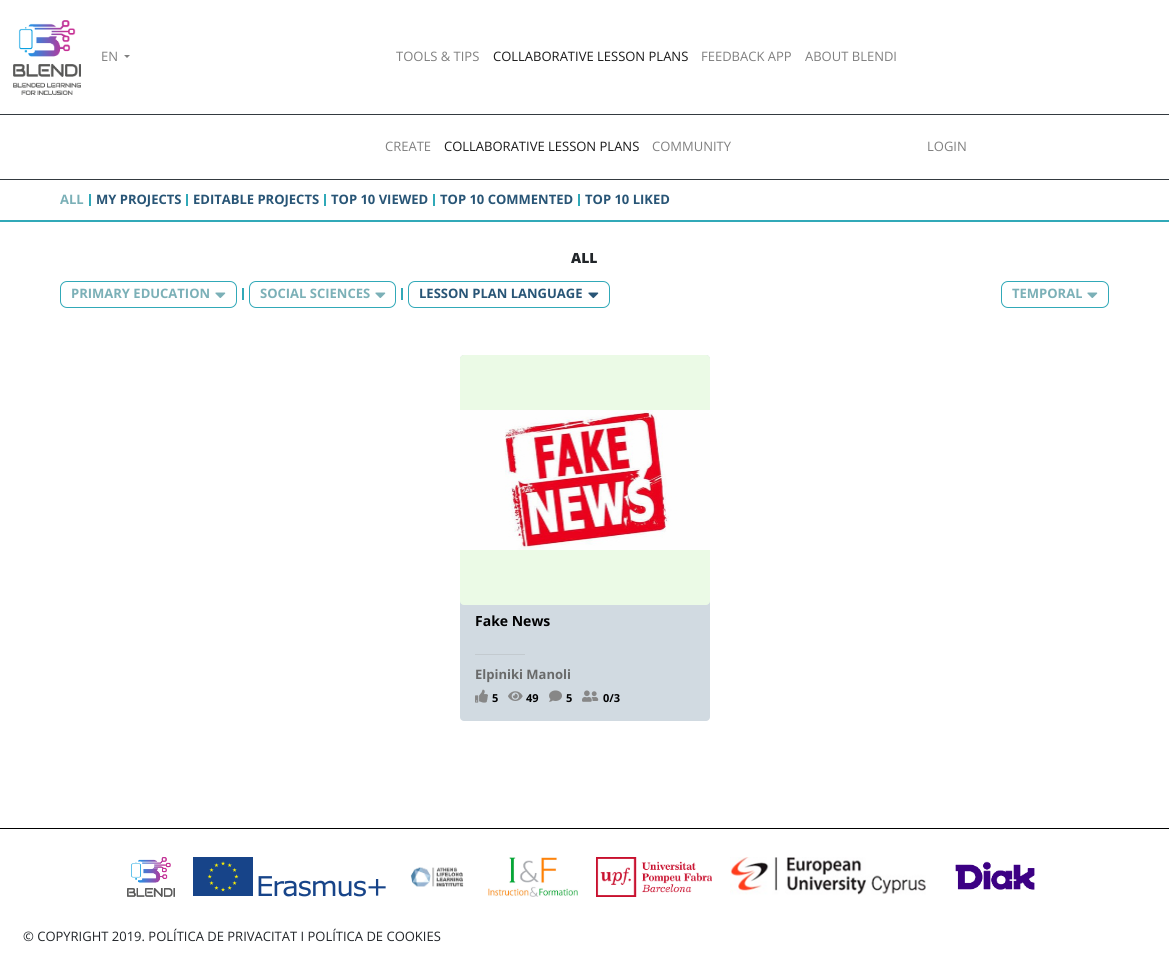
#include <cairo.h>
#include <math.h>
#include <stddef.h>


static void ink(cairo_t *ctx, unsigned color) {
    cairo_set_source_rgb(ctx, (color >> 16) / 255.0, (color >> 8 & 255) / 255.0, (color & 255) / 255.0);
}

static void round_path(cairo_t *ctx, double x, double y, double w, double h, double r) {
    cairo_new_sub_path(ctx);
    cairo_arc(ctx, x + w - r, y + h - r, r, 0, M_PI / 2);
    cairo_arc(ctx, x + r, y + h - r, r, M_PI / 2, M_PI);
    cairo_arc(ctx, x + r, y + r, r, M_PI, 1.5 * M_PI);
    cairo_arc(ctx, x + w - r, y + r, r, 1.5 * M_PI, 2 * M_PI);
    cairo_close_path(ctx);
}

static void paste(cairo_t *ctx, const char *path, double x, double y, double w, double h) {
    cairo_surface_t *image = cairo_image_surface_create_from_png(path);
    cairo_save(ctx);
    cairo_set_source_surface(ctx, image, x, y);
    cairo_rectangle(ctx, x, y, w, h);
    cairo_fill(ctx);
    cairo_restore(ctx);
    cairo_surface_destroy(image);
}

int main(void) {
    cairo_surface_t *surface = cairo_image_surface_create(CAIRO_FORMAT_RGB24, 1169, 979);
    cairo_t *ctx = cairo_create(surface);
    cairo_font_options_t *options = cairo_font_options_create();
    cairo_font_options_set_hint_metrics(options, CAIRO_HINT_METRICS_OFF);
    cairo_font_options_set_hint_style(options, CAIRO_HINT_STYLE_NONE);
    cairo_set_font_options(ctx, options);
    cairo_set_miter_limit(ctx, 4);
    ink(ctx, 0xFFFFFF);
    cairo_paint(ctx);
    ink(ctx, 0x343A40);
    cairo_rectangle(ctx, 0, 114, 1169, 1);
    cairo_fill(ctx);
    paste(ctx, "media/1.png", 13, 20, 68, 75);
    cairo_select_font_face(ctx, "Open Sans", CAIRO_FONT_SLANT_NORMAL, CAIRO_FONT_WEIGHT_NORMAL);
    cairo_set_font_size(ctx, 13);
    ink(ctx, 0x808080);
    cairo_move_to(ctx, 101, 61);
    cairo_show_text(ctx, "EN");
    cairo_new_path(ctx);
    cairo_move_to(ctx, 124, 55);
    cairo_line_to(ctx, 130, 55);
    cairo_line_to(ctx, 127, 58);
    cairo_close_path(ctx);
    cairo_fill(ctx);
    cairo_move_to(ctx, 396, 61);
    cairo_show_text(ctx, "TOOLS & TIPS");
    ink(ctx, 0x1A1A1A);
    cairo_move_to(ctx, 493, 61);
    cairo_show_text(ctx, "COLLABORATIVE LESSON PLANS");
    ink(ctx, 0x808080);
    cairo_move_to(ctx, 701, 61);
    cairo_show_text(ctx, "FEEDBACK APP");
    cairo_move_to(ctx, 805, 61);
    cairo_show_text(ctx, "ABOUT BLENDI");
    ink(ctx, 0x343A40);
    cairo_rectangle(ctx, 0, 179, 1169, 1);
    cairo_fill(ctx);
    ink(ctx, 0x808080);
    cairo_move_to(ctx, 385, 151);
    cairo_show_text(ctx, "CREATE");
    ink(ctx, 0x1A1A1A);
    cairo_move_to(ctx, 444, 151);
    cairo_show_text(ctx, "COLLABORATIVE LESSON PLANS");
    ink(ctx, 0x808080);
    cairo_move_to(ctx, 652, 151);
    cairo_show_text(ctx, "COMMUNITY");
    cairo_move_to(ctx, 927, 151);
    cairo_show_text(ctx, "LOGIN");
    ink(ctx, 0x31A9B8);
    cairo_rectangle(ctx, 0, 220, 1169, 2);
    cairo_fill(ctx);
    cairo_select_font_face(ctx, "Open Sans", CAIRO_FONT_SLANT_NORMAL, CAIRO_FONT_WEIGHT_BOLD);
    ink(ctx, 0x7BB0B7);
    cairo_move_to(ctx, 60, 204);
    cairo_show_text(ctx, "ALL");
    ink(ctx, 0x31A9B8);
    cairo_rectangle(ctx, 89, 194, 2, 12);
    cairo_fill(ctx);
    ink(ctx, 0x285576);
    cairo_move_to(ctx, 96, 204);
    cairo_show_text(ctx, "MY PROJECTS");
    ink(ctx, 0x31A9B8);
    cairo_rectangle(ctx, 186, 194, 2, 12);
    cairo_fill(ctx);
    ink(ctx, 0x285576);
    cairo_move_to(ctx, 193, 204);
    cairo_show_text(ctx, "EDITABLE PROJECTS");
    ink(ctx, 0x31A9B8);
    cairo_rectangle(ctx, 324, 194, 2, 12);
    cairo_fill(ctx);
    ink(ctx, 0x285576);
    cairo_move_to(ctx, 331, 204);
    cairo_show_text(ctx, "TOP 10 VIEWED");
    ink(ctx, 0x31A9B8);
    cairo_rectangle(ctx, 433, 194, 2, 12);
    cairo_fill(ctx);
    ink(ctx, 0x285576);
    cairo_move_to(ctx, 440, 204);
    cairo_show_text(ctx, "TOP 10 COMMENTED");
    ink(ctx, 0x31A9B8);
    cairo_rectangle(ctx, 578, 194, 2, 12);
    cairo_fill(ctx);
    ink(ctx, 0x285576);
    cairo_move_to(ctx, 585, 204);
    cairo_show_text(ctx, "TOP 10 LIKED");
    cairo_select_font_face(ctx, "Open Sans ExtraBold", CAIRO_FONT_SLANT_NORMAL, CAIRO_FONT_WEIGHT_NORMAL);
    cairo_set_font_size(ctx, 14);
    ink(ctx, 0x212529);
    cairo_move_to(ctx, 571, 263);
    cairo_show_text(ctx, "ALL");
    round_path(ctx, 60.5, 281.5, 176, 26, 6.5);
    ink(ctx, 0x31A9B8);
    cairo_set_line_width(ctx, 1);
    cairo_stroke(ctx);
    cairo_select_font_face(ctx, "Open Sans", CAIRO_FONT_SLANT_NORMAL, CAIRO_FONT_WEIGHT_BOLD);
    cairo_set_font_size(ctx, 13);
    ink(ctx, 0x7BB0B7);
    cairo_move_to(ctx, 71, 298);
    cairo_show_text(ctx, "PRIMARY EDUCATION");
    paste(ctx, "media/2.png", 215, 292, 11, 6);
    ink(ctx, 0x31A9B8);
    cairo_rectangle(ctx, 242, 288, 2, 12);
    cairo_fill(ctx);
    round_path(ctx, 249.5, 281.5, 146, 26, 6.5);
    cairo_stroke(ctx);
    ink(ctx, 0x7BB0B7);
    cairo_move_to(ctx, 260, 298);
    cairo_show_text(ctx, "SOCIAL SCIENCES");
    paste(ctx, "media/2.png", 375, 292, 11, 6);
    ink(ctx, 0x31A9B8);
    cairo_rectangle(ctx, 401, 288, 2, 12);
    cairo_fill(ctx);
    round_path(ctx, 408.5, 281.5, 201, 26, 6.5);
    cairo_stroke(ctx);
    ink(ctx, 0x285576);
    cairo_move_to(ctx, 419, 298);
    cairo_show_text(ctx, "LESSON PLAN LANGUAGE");
    paste(ctx, "media/3.png", 588, 292, 11, 7);
    round_path(ctx, 1001.5, 281.5, 107, 26, 6.5);
    ink(ctx, 0x31A9B8);
    cairo_stroke(ctx);
    ink(ctx, 0x7BB0B7);
    cairo_move_to(ctx, 1012, 298);
    cairo_show_text(ctx, "TEMPORAL");
    paste(ctx, "media/2.png", 1087, 292, 11, 6);
    ink(ctx, 0xD1DAE1);
    round_path(ctx, 460, 355, 250, 366, 4);
    cairo_fill(ctx);
    ink(ctx, 0xEBFAE6);
    round_path(ctx, 460, 355, 250, 250, 4);
    cairo_fill(ctx);
    paste(ctx, "media/4.png", 460, 410, 250, 140);
    cairo_set_font_size(ctx, 14);
    ink(ctx, 0x010102);
    cairo_move_to(ctx, 475, 626);
    cairo_show_text(ctx, "Fake News");
    ink(ctx, 0xC3CACF);
    cairo_rectangle(ctx, 475, 654, 50, 1);
    cairo_fill(ctx);
    cairo_set_font_size(ctx, 13);
    ink(ctx, 0x696A6A);
    cairo_move_to(ctx, 475, 679);
    cairo_show_text(ctx, "Elpiniki Manoli");
    paste(ctx, "media/5.png", 475, 689, 13, 14);
    cairo_set_font_size(ctx, 11);
    ink(ctx, 0x010102);
    cairo_move_to(ctx, 492, 702);
    cairo_show_text(ctx, "5");
    paste(ctx, "media/6.png", 508, 691, 15, 10);
    cairo_move_to(ctx, 526, 702);
    cairo_show_text(ctx, "49");
    paste(ctx, "media/7.png", 549, 690, 13, 12);
    cairo_move_to(ctx, 566, 702);
    cairo_show_text(ctx, "5");
    paste(ctx, "media/8.png", 582, 690, 17, 12);
    cairo_move_to(ctx, 603, 702);
    cairo_show_text(ctx, "0/3");
    ink(ctx, 0x000000);
    cairo_rectangle(ctx, 0, 828, 1169, 1);
    cairo_fill(ctx);
    paste(ctx, "media/9.png", 127, 857, 48, 40);
    paste(ctx, "media/10.png", 193, 857, 193, 40);
    paste(ctx, "media/11.png", 410, 867, 54, 20);
    paste(ctx, "media/12.png", 488, 857, 90, 40);
    paste(ctx, "media/13.png", 596, 857, 116, 40);
    paste(ctx, "media/14.png", 730, 857, 196, 38);
    paste(ctx, "media/15.png", 955, 861, 80, 29);
    cairo_select_font_face(ctx, "Open Sans", CAIRO_FONT_SLANT_NORMAL, CAIRO_FONT_WEIGHT_NORMAL);
    cairo_set_font_size(ctx, 13);
    ink(ctx, 0x212529);
    cairo_move_to(ctx, 23, 941);
    cairo_show_text(ctx, "© COPYRIGHT 2019. POLÍTICA DE PRIVACITAT I POLÍTICA DE COOKIES");
    cairo_surface_write_to_png(surface, "image.png");
    cairo_font_options_destroy(options);
    cairo_destroy(ctx);
    cairo_surface_destroy(surface);
    return 0;
}
